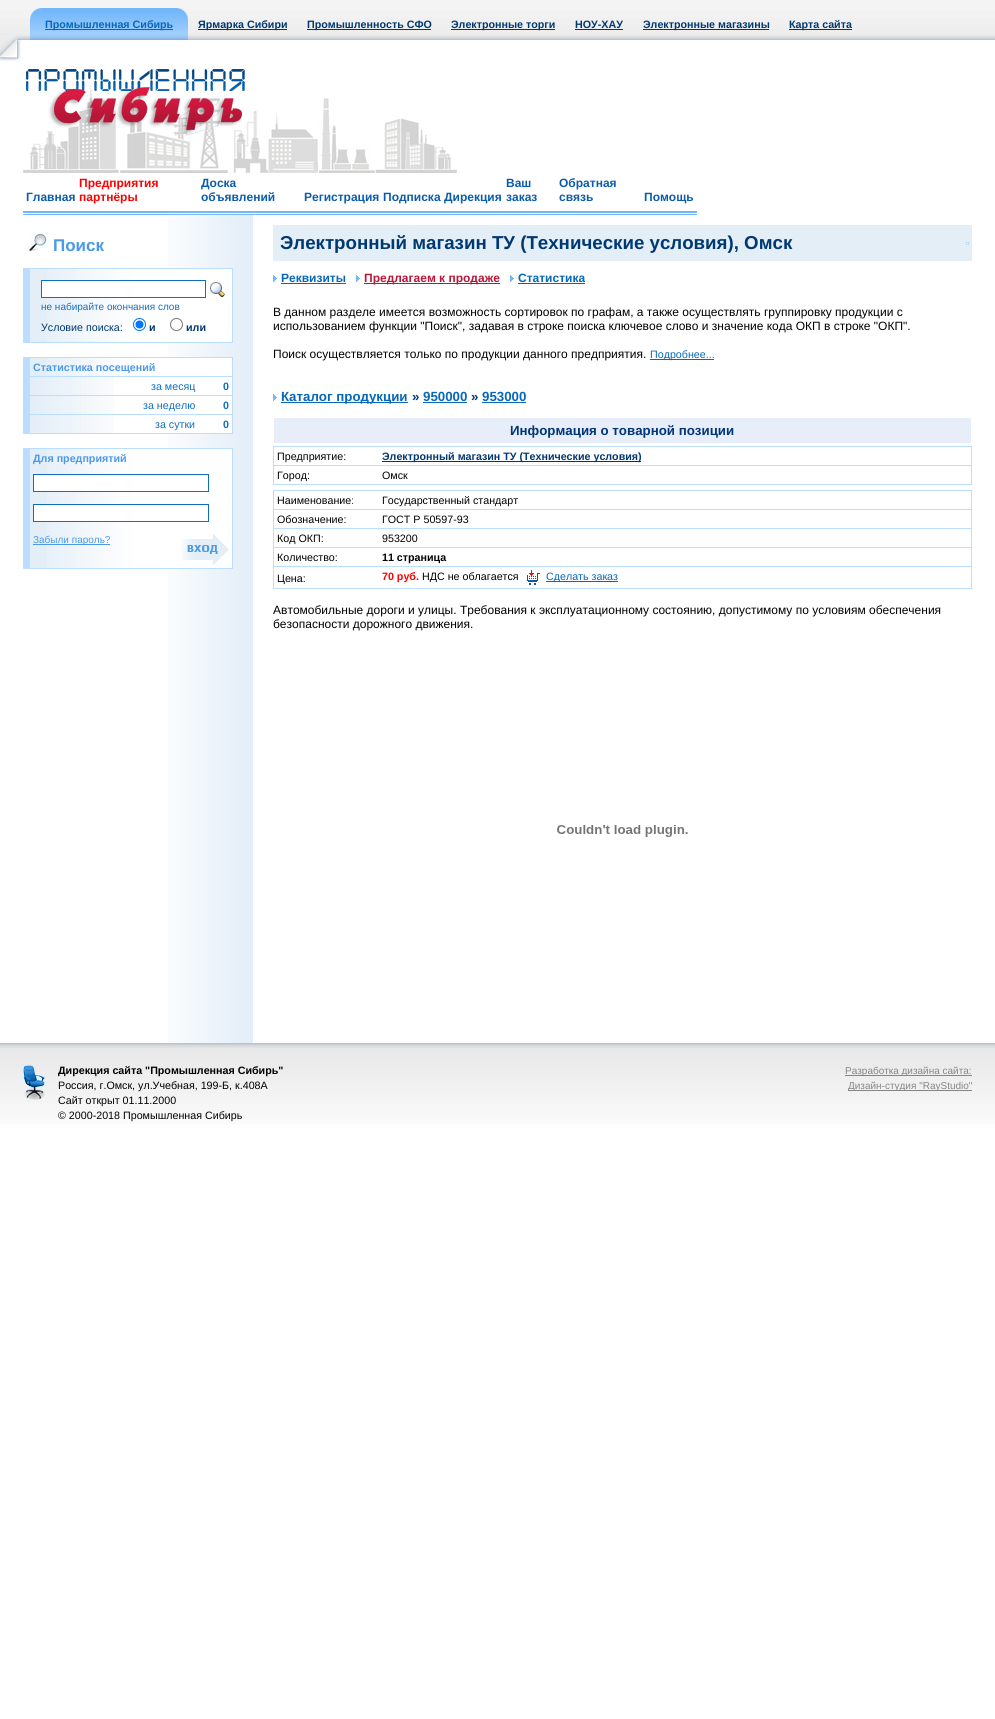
#include <cairo.h>
#include <math.h>
#include <stddef.h>

typedef struct { double x, y; const char *s; } line_t;

static void ink(cairo_t *ctx, unsigned color) {
    cairo_set_source_rgb(ctx, (color >> 16) / 255.0, (color >> 8 & 255) / 255.0, (color & 255) / 255.0);
}

static void paste(cairo_t *ctx, const char *path, double x, double y, double w, double h) {
    cairo_surface_t *image = cairo_image_surface_create_from_png(path);
    cairo_save(ctx);
    cairo_set_source_surface(ctx, image, x, y);
    cairo_rectangle(ctx, x, y, w, h);
    cairo_fill(ctx);
    cairo_restore(ctx);
    cairo_surface_destroy(image);
}

int main(void) {
    cairo_surface_t *surface = cairo_image_surface_create(CAIRO_FORMAT_RGB24, 995, 1719);
    cairo_t *ctx = cairo_create(surface);
    cairo_font_options_t *options = cairo_font_options_create();
    cairo_font_options_set_hint_metrics(options, CAIRO_HINT_METRICS_OFF);
    cairo_font_options_set_hint_style(options, CAIRO_HINT_STYLE_NONE);
    cairo_set_font_options(ctx, options);
    cairo_set_miter_limit(ctx, 4);
    ink(ctx, 0xFFFFFF);
    cairo_paint(ctx);
    paste(ctx, "media/1.png", 0, 0, 995, 40);
    paste(ctx, "media/2.png", 30, 8, 15, 32);
    paste(ctx, "media/3.png", 45, 8, 128, 32);
    ink(ctx, 0x0767B9);
    cairo_rectangle(ctx, 45, 29, 128, 1);
    cairo_fill(ctx);
    cairo_select_font_face(ctx, "Liberation Sans", CAIRO_FONT_SLANT_NORMAL, CAIRO_FONT_WEIGHT_BOLD);
    cairo_set_font_size(ctx, 10.7);
    cairo_move_to(ctx, 45, 28);
    cairo_show_text(ctx, "Промышленная Сибирь");
    paste(ctx, "media/4.png", 173, 8, 15, 32);
    ink(ctx, 0x003871);
    cairo_rectangle(ctx, 198, 29, 89, 1);
    cairo_fill(ctx);
    cairo_move_to(ctx, 198, 28);
    cairo_show_text(ctx, "Ярмарка Сибири");
    cairo_rectangle(ctx, 307, 29, 124, 1);
    cairo_fill(ctx);
    cairo_move_to(ctx, 307, 28);
    cairo_show_text(ctx, "Промышленность СФО");
    cairo_rectangle(ctx, 451, 29, 104, 1);
    cairo_fill(ctx);
    cairo_move_to(ctx, 451, 28);
    cairo_show_text(ctx, "Электронные торги");
    cairo_move_to(ctx, 575, 28);
    cairo_show_text(ctx, "НОУ-ХАУ");
    cairo_rectangle(ctx, 575, 29, 48, 1);
    cairo_fill(ctx);
    cairo_rectangle(ctx, 643, 29, 126, 1);
    cairo_fill(ctx);
    cairo_move_to(ctx, 643, 28);
    cairo_show_text(ctx, "Электронные магазины");
    cairo_rectangle(ctx, 789, 29, 63, 1);
    cairo_fill(ctx);
    cairo_move_to(ctx, 789, 28);
    cairo_show_text(ctx, "Карта сайта");
    paste(ctx, "media/5.png", 0, 35, 21, 5);
    paste(ctx, "media/6.png", 0, 40, 23, 23);
    paste(ctx, "media/7.png", 23, 69, 434, 104);
    paste(ctx, "media/8.png", 23, 211, 674, 4);
    cairo_set_font_size(ctx, 12);
    ink(ctx, 0x0B5CAD);
    cairo_move_to(ctx, 26, 201);
    cairo_show_text(ctx, "Главная");
    ink(ctx, 0xFF0000);
    cairo_move_to(ctx, 79, 187);
    cairo_show_text(ctx, "Предприятия");
    cairo_move_to(ctx, 79, 201);
    cairo_show_text(ctx, "партнёры");
    ink(ctx, 0x0B5CAD);
    {
        static const line_t items[] = {
            {201, 187, "Доска"},
            {201, 201, "объявлений"},
            {304, 201, "Регистрация"},
            {383, 201, "Подписка"},
            {444, 201, "Дирекция"},
            {506, 187, "Ваш"},
            {506, 201, "заказ"},
            {559, 187, "Обратная"},
            {559, 201, "связь"},
            {644, 201, "Помощь"},
        };
        for (size_t i = 0; i < sizeof items / sizeof *items; i++) {
            cairo_move_to(ctx, items[i].x, items[i].y);
            cairo_show_text(ctx, items[i].s);
        }
    }
    paste(ctx, "media/9.png", 168, 215, 85, 828);
    paste(ctx, "media/10.png", 28, 233, 20, 18);
    cairo_set_font_size(ctx, 17);
    ink(ctx, 0x4C99E6);
    cairo_move_to(ctx, 53, 251);
    cairo_show_text(ctx, "Поиск");
    ink(ctx, 0xBBDDFF);
    cairo_rectangle(ctx, 23, 268, 210, 75);
    cairo_fill(ctx);
    ink(ctx, 0xE3EEF7);
    cairo_rectangle(ctx, 30, 269, 17, 73);
    cairo_fill(ctx);
    paste(ctx, "media/11.png", 47, 269, 185, 73);
    ink(ctx, 0xFFFFFF);
    cairo_rectangle(ctx, 42, 281, 84, 16);
    cairo_fill(ctx);
    cairo_rectangle(ctx, 41.5, 280.5, 164, 17);
    ink(ctx, 0x116EBE);
    cairo_set_line_width(ctx, 1);
    cairo_stroke(ctx);
    paste(ctx, "media/12.png", 210, 282, 15, 15);
    cairo_select_font_face(ctx, "Liberation Sans", CAIRO_FONT_SLANT_NORMAL, CAIRO_FONT_WEIGHT_NORMAL);
    cairo_set_font_size(ctx, 10);
    cairo_move_to(ctx, 41, 310);
    cairo_show_text(ctx, "не набирайте окончания слов");
    cairo_set_font_size(ctx, 10.7);
    ink(ctx, 0x003871);
    cairo_move_to(ctx, 41, 331);
    cairo_show_text(ctx, "Условие поиска:");
    cairo_new_path(ctx);
    cairo_arc(ctx, 139.5, 324.5, 6, 0, 2 * M_PI);
    ink(ctx, 0x0075FF);
    cairo_stroke(ctx);
    cairo_arc(ctx, 139.5, 324.5, 4, 0, 2 * M_PI);
    cairo_fill(ctx);
    cairo_select_font_face(ctx, "Liberation Sans", CAIRO_FONT_SLANT_NORMAL, CAIRO_FONT_WEIGHT_BOLD);
    ink(ctx, 0x003871);
    cairo_move_to(ctx, 149, 331);
    cairo_show_text(ctx, "и");
    cairo_new_path(ctx);
    cairo_arc(ctx, 176.5, 324.5, 6, 0, 2 * M_PI);
    ink(ctx, 0x767676);
    cairo_stroke(ctx);
    ink(ctx, 0x003871);
    cairo_move_to(ctx, 186, 331);
    cairo_show_text(ctx, "или");
    ink(ctx, 0xBBDDFF);
    cairo_rectangle(ctx, 23, 357, 210, 77);
    cairo_fill(ctx);
    ink(ctx, 0xE3EEF7);
    cairo_rectangle(ctx, 30, 358, 17, 18);
    cairo_fill(ctx);
    paste(ctx, "media/13.png", 47, 358, 185, 18);
    ink(ctx, 0x4C99E6);
    cairo_move_to(ctx, 33, 371);
    cairo_show_text(ctx, "Статистика посещений");
    ink(ctx, 0xFFFFFF);
    cairo_rectangle(ctx, 114, 377, 118, 18);
    cairo_fill(ctx);
    paste(ctx, "media/14.png", 30, 377, 84, 18);
    cairo_select_font_face(ctx, "Liberation Sans", CAIRO_FONT_SLANT_NORMAL, CAIRO_FONT_WEIGHT_NORMAL);
    ink(ctx, 0x116EBE);
    cairo_move_to(ctx, 151, 390);
    cairo_show_text(ctx, "за месяц");
    cairo_select_font_face(ctx, "Liberation Sans", CAIRO_FONT_SLANT_NORMAL, CAIRO_FONT_WEIGHT_BOLD);
    cairo_move_to(ctx, 223, 390);
    cairo_show_text(ctx, "0");
    ink(ctx, 0xFFFFFF);
    cairo_rectangle(ctx, 114, 396, 118, 18);
    cairo_fill(ctx);
    paste(ctx, "media/14.png", 30, 396, 84, 18);
    cairo_select_font_face(ctx, "Liberation Sans", CAIRO_FONT_SLANT_NORMAL, CAIRO_FONT_WEIGHT_NORMAL);
    ink(ctx, 0x116EBE);
    cairo_move_to(ctx, 143, 409);
    cairo_show_text(ctx, "за неделю");
    cairo_select_font_face(ctx, "Liberation Sans", CAIRO_FONT_SLANT_NORMAL, CAIRO_FONT_WEIGHT_BOLD);
    cairo_move_to(ctx, 223, 409);
    cairo_show_text(ctx, "0");
    ink(ctx, 0xFFFFFF);
    cairo_rectangle(ctx, 114, 415, 118, 18);
    cairo_fill(ctx);
    paste(ctx, "media/14.png", 30, 415, 84, 18);
    cairo_select_font_face(ctx, "Liberation Sans", CAIRO_FONT_SLANT_NORMAL, CAIRO_FONT_WEIGHT_NORMAL);
    ink(ctx, 0x116EBE);
    cairo_move_to(ctx, 155, 428);
    cairo_show_text(ctx, "за сутки");
    cairo_select_font_face(ctx, "Liberation Sans", CAIRO_FONT_SLANT_NORMAL, CAIRO_FONT_WEIGHT_BOLD);
    cairo_move_to(ctx, 223, 428);
    cairo_show_text(ctx, "0");
    ink(ctx, 0xBBDDFF);
    cairo_rectangle(ctx, 23, 448, 210, 121);
    cairo_fill(ctx);
    ink(ctx, 0xE3EEF7);
    cairo_rectangle(ctx, 30, 449, 17, 119);
    cairo_fill(ctx);
    paste(ctx, "media/15.png", 47, 449, 185, 119);
    ink(ctx, 0x4C99E6);
    cairo_move_to(ctx, 33, 462);
    cairo_show_text(ctx, "Для предприятий");
    ink(ctx, 0xFFFFFF);
    cairo_rectangle(ctx, 34, 475, 92, 16);
    cairo_fill(ctx);
    cairo_rectangle(ctx, 33.5, 474.5, 175, 17);
    ink(ctx, 0x116EBE);
    cairo_stroke(ctx);
    ink(ctx, 0xFFFFFF);
    cairo_rectangle(ctx, 34, 505, 92, 16);
    cairo_fill(ctx);
    cairo_rectangle(ctx, 33.5, 504.5, 175, 17);
    ink(ctx, 0x116EBE);
    cairo_stroke(ctx);
    ink(ctx, 0x4C99E6);
    cairo_rectangle(ctx, 33, 544, 77, 1);
    cairo_fill(ctx);
    cairo_select_font_face(ctx, "Liberation Sans", CAIRO_FONT_SLANT_NORMAL, CAIRO_FONT_WEIGHT_NORMAL);
    cairo_set_font_size(ctx, 10);
    cairo_move_to(ctx, 33, 543);
    cairo_show_text(ctx, "Забыли пароль?");
    paste(ctx, "media/16.png", 181, 534, 48, 31);
    ink(ctx, 0xE3EEF7);
    cairo_rectangle(ctx, 273, 225, 699, 36);
    cairo_fill(ctx);
    cairo_select_font_face(ctx, "Liberation Sans", CAIRO_FONT_SLANT_NORMAL, CAIRO_FONT_WEIGHT_BOLD);
    cairo_set_font_size(ctx, 18.7);
    ink(ctx, 0x003871);
    cairo_move_to(ctx, 280, 249);
    cairo_show_text(ctx, "Электронный магазин ТУ (Технические условия), Омск");
    ink(ctx, 0xFFFFFF);
    cairo_rectangle(ctx, 966.5, 242.5, 2, 2);
    cairo_fill_preserve(ctx);
    ink(ctx, 0xBBDDFF);
    cairo_stroke(ctx);
    paste(ctx, "media/17.png", 273, 275, 4, 7);
    cairo_set_font_size(ctx, 12);
    ink(ctx, 0x0767B9);
    cairo_move_to(ctx, 281, 282);
    cairo_show_text(ctx, "Реквизиты");
    cairo_rectangle(ctx, 281, 283, 65, 1);
    cairo_fill(ctx);
    paste(ctx, "media/17.png", 356, 275, 4, 7);
    ink(ctx, 0xBA1638);
    cairo_rectangle(ctx, 364, 283, 136, 1);
    cairo_fill(ctx);
    cairo_move_to(ctx, 364, 282);
    cairo_show_text(ctx, "Предлагаем к продаже");
    paste(ctx, "media/17.png", 510, 275, 4, 7);
    ink(ctx, 0x0767B9);
    cairo_move_to(ctx, 518, 282);
    cairo_show_text(ctx, "Статистика");
    cairo_rectangle(ctx, 518, 283, 67, 1);
    cairo_fill(ctx);
    cairo_select_font_face(ctx, "Liberation Sans", CAIRO_FONT_SLANT_NORMAL, CAIRO_FONT_WEIGHT_NORMAL);
    ink(ctx, 0x000000);
    {
        static const line_t items[] = {
            {273, 316, "В данном разделе имеется возможность сортировок по графам, а также осуществлять группировку продукции с"},
            {273, 330, "использованием функции \"Поиск\", задавая в строке поиска ключевое слово и значение кода ОКП в строке \"ОКП\"."},
            {273, 358, "Поиск осуществляется только по продукции данного предприятия."},
        };
        for (size_t i = 0; i < sizeof items / sizeof *items; i++) {
            cairo_move_to(ctx, items[i].x, items[i].y);
            cairo_show_text(ctx, items[i].s);
        }
    }
    ink(ctx, 0x0767B9);
    cairo_rectangle(ctx, 650, 359, 64, 1);
    cairo_fill(ctx);
    cairo_set_font_size(ctx, 10.7);
    cairo_move_to(ctx, 650, 358);
    cairo_show_text(ctx, "Подробнее...");
    paste(ctx, "media/17.png", 273, 394, 4, 7);
    cairo_rectangle(ctx, 281, 402, 127, 1);
    cairo_fill(ctx);
    cairo_select_font_face(ctx, "Liberation Sans", CAIRO_FONT_SLANT_NORMAL, CAIRO_FONT_WEIGHT_BOLD);
    cairo_set_font_size(ctx, 13.3);
    cairo_move_to(ctx, 281, 401);
    cairo_show_text(ctx, "Каталог продукции");
    ink(ctx, 0x003871);
    cairo_move_to(ctx, 412, 401);
    cairo_show_text(ctx, "»");
    ink(ctx, 0x0767B9);
    cairo_move_to(ctx, 423, 401);
    cairo_show_text(ctx, "950000");
    cairo_rectangle(ctx, 423, 402, 44, 1);
    cairo_fill(ctx);
    ink(ctx, 0x003871);
    cairo_move_to(ctx, 471, 401);
    cairo_show_text(ctx, "»");
    ink(ctx, 0x0767B9);
    cairo_move_to(ctx, 482, 401);
    cairo_show_text(ctx, "953000");
    cairo_rectangle(ctx, 482, 402, 44, 1);
    cairo_fill(ctx);
    ink(ctx, 0xE7EDF9);
    cairo_rectangle(ctx, 274, 418, 697, 25);
    cairo_fill(ctx);
    ink(ctx, 0x003679);
    cairo_move_to(ctx, 510, 435);
    cairo_show_text(ctx, "Информация о товарной позиции");
    ink(ctx, 0xBBDDFF);
    cairo_rectangle(ctx, 273, 446, 699, 39);
    cairo_fill(ctx);
    ink(ctx, 0xFFFFFF);
    cairo_rectangle(ctx, 274, 447, 697, 18);
    cairo_fill(ctx);
    cairo_select_font_face(ctx, "Liberation Sans", CAIRO_FONT_SLANT_NORMAL, CAIRO_FONT_WEIGHT_NORMAL);
    cairo_set_font_size(ctx, 10.7);
    ink(ctx, 0x000000);
    cairo_move_to(ctx, 277, 460);
    cairo_show_text(ctx, "Предприятие:");
    ink(ctx, 0x003871);
    cairo_rectangle(ctx, 382, 461, 259, 1);
    cairo_fill(ctx);
    cairo_select_font_face(ctx, "Liberation Sans", CAIRO_FONT_SLANT_NORMAL, CAIRO_FONT_WEIGHT_BOLD);
    cairo_move_to(ctx, 382, 460);
    cairo_show_text(ctx, "Электронный магазин ТУ (Технические условия)");
    ink(ctx, 0xFFFFFF);
    cairo_rectangle(ctx, 274, 466, 697, 18);
    cairo_fill(ctx);
    cairo_select_font_face(ctx, "Liberation Sans", CAIRO_FONT_SLANT_NORMAL, CAIRO_FONT_WEIGHT_NORMAL);
    ink(ctx, 0x000000);
    cairo_move_to(ctx, 277, 479);
    cairo_show_text(ctx, "Город:");
    cairo_move_to(ctx, 382, 479);
    cairo_show_text(ctx, "Омск");
    ink(ctx, 0xBBDDFF);
    cairo_rectangle(ctx, 273, 490, 699, 99);
    cairo_fill(ctx);
    ink(ctx, 0xFFFFFF);
    cairo_rectangle(ctx, 274, 491, 697, 18);
    cairo_fill(ctx);
    ink(ctx, 0x000000);
    cairo_move_to(ctx, 277, 504);
    cairo_show_text(ctx, "Наименование:");
    cairo_move_to(ctx, 382, 504);
    cairo_show_text(ctx, "Государственный стандарт");
    ink(ctx, 0xFFFFFF);
    cairo_rectangle(ctx, 274, 510, 697, 18);
    cairo_fill(ctx);
    ink(ctx, 0x000000);
    cairo_move_to(ctx, 277, 523);
    cairo_show_text(ctx, "Обозначение:");
    cairo_move_to(ctx, 382, 523);
    cairo_show_text(ctx, "ГОСТ Р 50597-93");
    ink(ctx, 0xFFFFFF);
    cairo_rectangle(ctx, 274, 529, 697, 18);
    cairo_fill(ctx);
    ink(ctx, 0x000000);
    cairo_move_to(ctx, 277, 542);
    cairo_show_text(ctx, "Код ОКП:");
    cairo_move_to(ctx, 382, 542);
    cairo_show_text(ctx, "953200");
    ink(ctx, 0xFFFFFF);
    cairo_rectangle(ctx, 274, 548, 697, 18);
    cairo_fill(ctx);
    ink(ctx, 0x000000);
    cairo_move_to(ctx, 277, 561);
    cairo_show_text(ctx, "Количество:");
    cairo_select_font_face(ctx, "Liberation Sans", CAIRO_FONT_SLANT_NORMAL, CAIRO_FONT_WEIGHT_BOLD);
    cairo_move_to(ctx, 382, 561);
    cairo_show_text(ctx, "11 страница");
    ink(ctx, 0xFFFFFF);
    cairo_rectangle(ctx, 274, 567, 697, 21);
    cairo_fill(ctx);
    cairo_select_font_face(ctx, "Liberation Sans", CAIRO_FONT_SLANT_NORMAL, CAIRO_FONT_WEIGHT_NORMAL);
    ink(ctx, 0x000000);
    cairo_move_to(ctx, 277, 582);
    cairo_show_text(ctx, "Цена:");
    cairo_select_font_face(ctx, "Liberation Sans", CAIRO_FONT_SLANT_NORMAL, CAIRO_FONT_WEIGHT_BOLD);
    ink(ctx, 0xFF0000);
    cairo_move_to(ctx, 382, 580);
    cairo_show_text(ctx, "70 руб.");
    cairo_select_font_face(ctx, "Liberation Sans", CAIRO_FONT_SLANT_NORMAL, CAIRO_FONT_WEIGHT_NORMAL);
    ink(ctx, 0x000000);
    cairo_move_to(ctx, 422, 580);
    cairo_show_text(ctx, "НДС не облагается");
    paste(ctx, "media/18.png", 527, 570, 13, 15);
    ink(ctx, 0x0767B9);
    cairo_rectangle(ctx, 546, 581, 72, 1);
    cairo_fill(ctx);
    cairo_move_to(ctx, 546, 580);
    cairo_show_text(ctx, "Сделать заказ");
    cairo_set_font_size(ctx, 12);
    ink(ctx, 0x000000);
    cairo_move_to(ctx, 273, 614);
    cairo_show_text(ctx, "Автомобильные дороги и улицы. Требования к эксплуатационному состоянию, допустимому по условиям обеспечения");
    cairo_move_to(ctx, 273, 628);
    cairo_show_text(ctx, "безопасности дорожного движения.");
    paste(ctx, "media/19.png", 557, 825, 131, 12);
    paste(ctx, "media/20.png", 0, 1043, 995, 81);
    paste(ctx, "media/21.png", 23, 1065, 22, 35);
    cairo_select_font_face(ctx, "Liberation Sans", CAIRO_FONT_SLANT_NORMAL, CAIRO_FONT_WEIGHT_BOLD);
    cairo_set_font_size(ctx, 10.7);
    cairo_move_to(ctx, 58, 1074);
    cairo_show_text(ctx, "Дирекция сайта \"Промышленная Сибирь\"");
    cairo_select_font_face(ctx, "Liberation Sans", CAIRO_FONT_SLANT_NORMAL, CAIRO_FONT_WEIGHT_NORMAL);
    {
        static const line_t items[] = {
            {58, 1089, "Россия, г.Омск, ул.Учебная, 199-Б, к.408А"},
            {58, 1104, "Сайт открыт 01.11.2000"},
            {58, 1119, "© 2000-2018 Промышленная Сибирь"},
        };
        for (size_t i = 0; i < sizeof items / sizeof *items; i++) {
            cairo_move_to(ctx, items[i].x, items[i].y);
            cairo_show_text(ctx, items[i].s);
        }
    }
    ink(ctx, 0x858585);
    cairo_rectangle(ctx, 845, 1075, 127, 1);
    cairo_fill(ctx);
    cairo_set_font_size(ctx, 10);
    cairo_move_to(ctx, 845, 1074);
    cairo_show_text(ctx, "Разработка дизайна сайта:");
    cairo_rectangle(ctx, 848, 1090, 124, 1);
    cairo_fill(ctx);
    cairo_move_to(ctx, 848, 1089);
    cairo_show_text(ctx, "Дизайн-студия \"RayStudio\"");
    cairo_surface_write_to_png(surface, "image.png");
    cairo_font_options_destroy(options);
    cairo_destroy(ctx);
    cairo_surface_destroy(surface);
    return 0;
}
